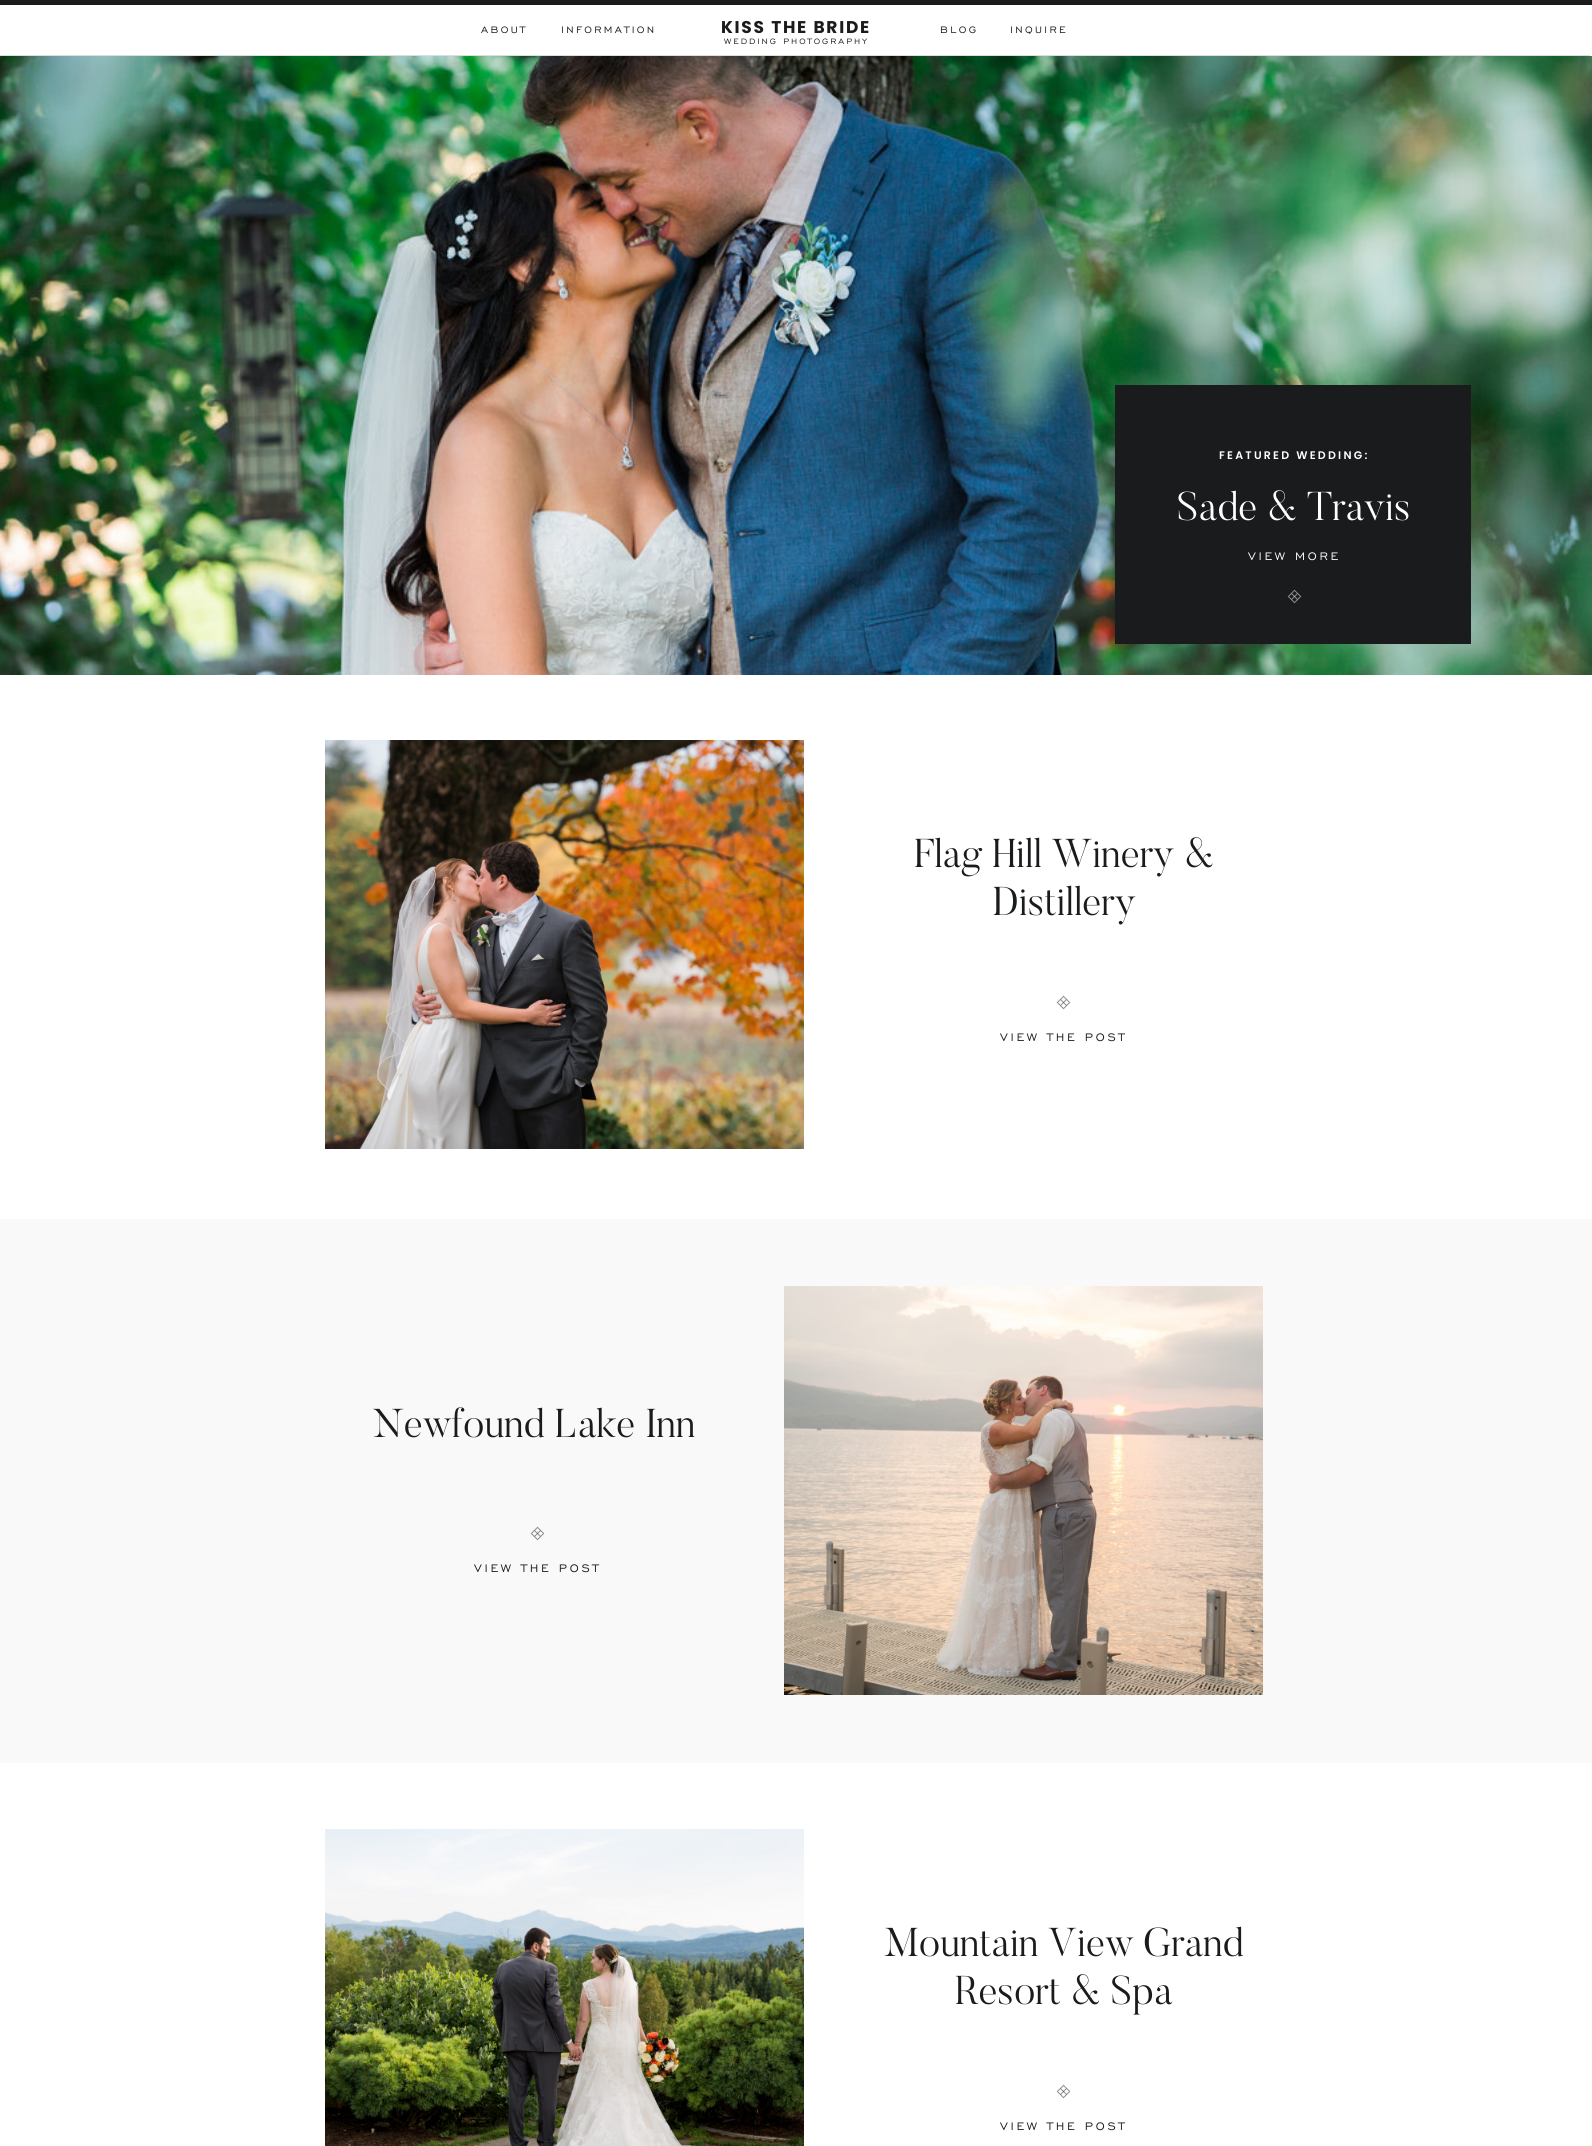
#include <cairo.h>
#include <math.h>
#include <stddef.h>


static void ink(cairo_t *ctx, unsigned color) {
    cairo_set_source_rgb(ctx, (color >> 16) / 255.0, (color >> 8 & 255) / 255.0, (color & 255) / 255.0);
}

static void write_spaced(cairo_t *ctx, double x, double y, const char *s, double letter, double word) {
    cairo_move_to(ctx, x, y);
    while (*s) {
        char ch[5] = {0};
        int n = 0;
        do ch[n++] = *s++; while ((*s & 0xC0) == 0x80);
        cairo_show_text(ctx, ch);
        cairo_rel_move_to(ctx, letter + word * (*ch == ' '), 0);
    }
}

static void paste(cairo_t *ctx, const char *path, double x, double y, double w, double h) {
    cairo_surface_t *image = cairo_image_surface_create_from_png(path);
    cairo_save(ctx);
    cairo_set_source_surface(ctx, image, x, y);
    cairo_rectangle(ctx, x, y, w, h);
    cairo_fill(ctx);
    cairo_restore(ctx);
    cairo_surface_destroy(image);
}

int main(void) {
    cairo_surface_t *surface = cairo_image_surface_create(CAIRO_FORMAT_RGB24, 1592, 2146);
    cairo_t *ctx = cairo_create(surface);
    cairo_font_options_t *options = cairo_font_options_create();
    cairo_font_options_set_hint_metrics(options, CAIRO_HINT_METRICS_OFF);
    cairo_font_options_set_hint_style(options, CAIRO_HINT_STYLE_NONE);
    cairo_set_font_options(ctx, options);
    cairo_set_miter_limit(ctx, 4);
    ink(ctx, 0xFFFFFF);
    cairo_paint(ctx);
    ink(ctx, 0x1A1B1D);
    cairo_rectangle(ctx, 0, 0, 1592, 5);
    cairo_fill(ctx);
    cairo_select_font_face(ctx, "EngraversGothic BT", CAIRO_FONT_SLANT_NORMAL, CAIRO_FONT_WEIGHT_NORMAL);
    cairo_set_font_size(ctx, 12);
    write_spaced(ctx, 481, 33, "ABOUT", 2.4, 0);
    write_spaced(ctx, 561, 33, "INFORMATION", 2.4, 0);
    cairo_select_font_face(ctx, "Poppins", CAIRO_FONT_SLANT_NORMAL, CAIRO_FONT_WEIGHT_BOLD);
    cairo_set_font_size(ctx, 17);
    write_spaced(ctx, 721, 33, "KISS THE BRIDE", 1.75, 0);
    cairo_select_font_face(ctx, "EngraversGothic BT", CAIRO_FONT_SLANT_NORMAL, CAIRO_FONT_WEIGHT_NORMAL);
    cairo_set_font_size(ctx, 12);
    write_spaced(ctx, 940, 33, "BLOG", 2.4, 0);
    write_spaced(ctx, 1010, 33, "INQUIRE", 2.4, 0);
    cairo_set_font_size(ctx, 10);
    write_spaced(ctx, 724, 44, "WEDDING PHOTOGRAPHY", 2, 0);
    ink(ctx, 0xDDDDDD);
    cairo_rectangle(ctx, 0, 55, 1590, 1);
    cairo_fill(ctx);
    paste(ctx, "media/1.png", 0, 56, 1592, 619);
    ink(ctx, 0x1A1B1D);
    cairo_rectangle(ctx, 1115, 385, 356, 259);
    cairo_fill(ctx);
    cairo_select_font_face(ctx, "Poppins SemiBold", CAIRO_FONT_SLANT_NORMAL, CAIRO_FONT_WEIGHT_NORMAL);
    cairo_set_font_size(ctx, 11);
    ink(ctx, 0xFFFFFF);
    write_spaced(ctx, 1219, 459, "FEATURED WEDDING:", 2.25, 0);
    cairo_select_font_face(ctx, "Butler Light", CAIRO_FONT_SLANT_NORMAL, CAIRO_FONT_WEIGHT_NORMAL);
    cairo_set_font_size(ctx, 40);
    cairo_move_to(ctx, 1177, 520);
    cairo_show_text(ctx, "Sade & Travis");
    cairo_select_font_face(ctx, "EngraversGothic BT", CAIRO_FONT_SLANT_NORMAL, CAIRO_FONT_WEIGHT_NORMAL);
    cairo_set_font_size(ctx, 14);
    write_spaced(ctx, 1248, 560, "VIEW MORE", 2.75, 0);
    paste(ctx, "media/2.png", 1287, 589, 15, 15);
    paste(ctx, "media/3.png", 325, 740, 479, 409);
    cairo_select_font_face(ctx, "Butler Light", CAIRO_FONT_SLANT_NORMAL, CAIRO_FONT_WEIGHT_NORMAL);
    cairo_set_font_size(ctx, 40);
    ink(ctx, 0x1A1B1D);
    cairo_move_to(ctx, 914, 867);
    cairo_show_text(ctx, "Flag Hill Winery &");
    cairo_move_to(ctx, 992, 915);
    cairo_show_text(ctx, "Distillery");
    paste(ctx, "media/4.png", 1056, 995, 15, 15);
    cairo_select_font_face(ctx, "EngraversGothic BT", CAIRO_FONT_SLANT_NORMAL, CAIRO_FONT_WEIGHT_NORMAL);
    cairo_set_font_size(ctx, 14);
    write_spaced(ctx, 1000, 1041, "VIEW THE POST", 2.75, 0);
    ink(ctx, 0xF9F9F9);
    cairo_rectangle(ctx, 0, 1219, 1592, 544);
    cairo_fill(ctx);
    cairo_select_font_face(ctx, "Butler Light", CAIRO_FONT_SLANT_NORMAL, CAIRO_FONT_WEIGHT_NORMAL);
    cairo_set_font_size(ctx, 40);
    ink(ctx, 0x1A1B1D);
    cairo_move_to(ctx, 373, 1437);
    cairo_show_text(ctx, "Newfound Lake Inn");
    paste(ctx, "media/5.png", 784, 1286, 479, 409);
    paste(ctx, "media/6.png", 530, 1526, 15, 15);
    cairo_select_font_face(ctx, "EngraversGothic BT", CAIRO_FONT_SLANT_NORMAL, CAIRO_FONT_WEIGHT_NORMAL);
    cairo_set_font_size(ctx, 14);
    write_spaced(ctx, 474, 1572, "VIEW THE POST", 2.75, 0);
    paste(ctx, "media/7.png", 325, 1829, 479, 317);
    cairo_select_font_face(ctx, "Butler Light", CAIRO_FONT_SLANT_NORMAL, CAIRO_FONT_WEIGHT_NORMAL);
    cairo_set_font_size(ctx, 40);
    cairo_move_to(ctx, 884, 1956);
    cairo_show_text(ctx, "Mountain View Grand");
    cairo_move_to(ctx, 955, 2004);
    cairo_show_text(ctx, "Resort & Spa");
    paste(ctx, "media/4.png", 1056, 2084, 15, 15);
    cairo_select_font_face(ctx, "EngraversGothic BT", CAIRO_FONT_SLANT_NORMAL, CAIRO_FONT_WEIGHT_NORMAL);
    cairo_set_font_size(ctx, 14);
    write_spaced(ctx, 1000, 2130, "VIEW THE POST", 2.75, 0);
    cairo_surface_write_to_png(surface, "image.png");
    cairo_font_options_destroy(options);
    cairo_destroy(ctx);
    cairo_surface_destroy(surface);
    return 0;
}
